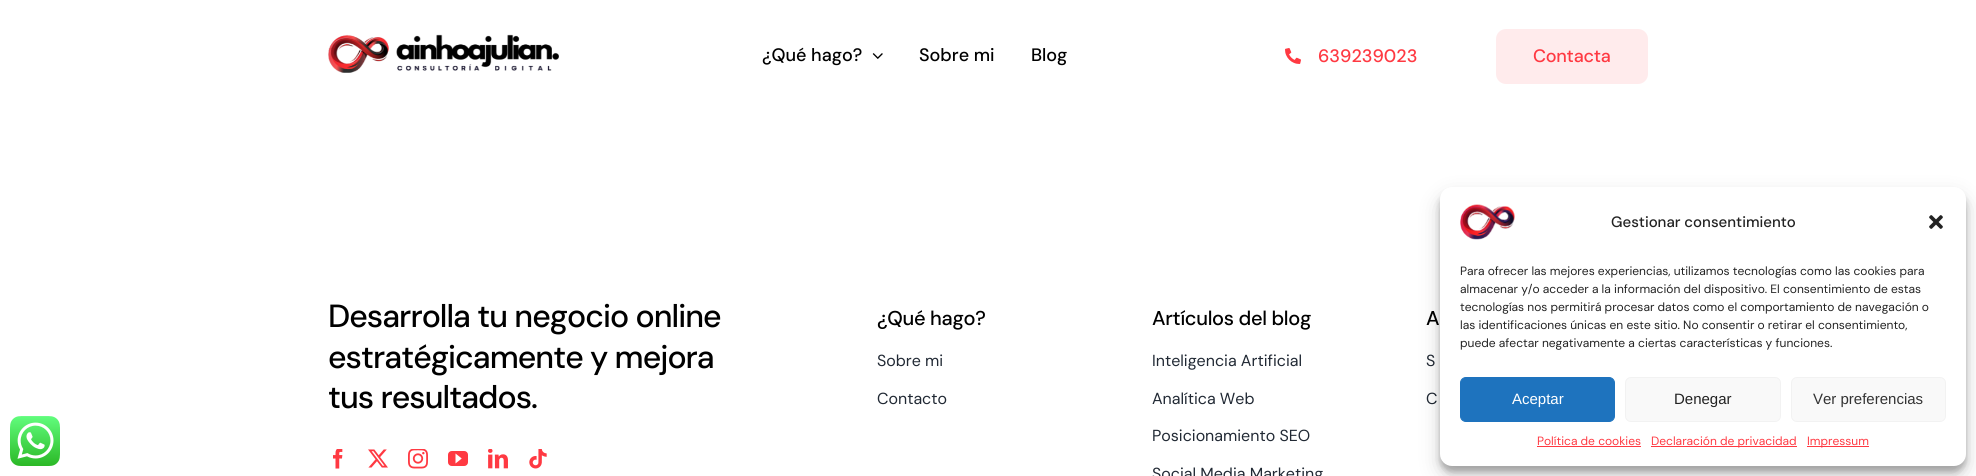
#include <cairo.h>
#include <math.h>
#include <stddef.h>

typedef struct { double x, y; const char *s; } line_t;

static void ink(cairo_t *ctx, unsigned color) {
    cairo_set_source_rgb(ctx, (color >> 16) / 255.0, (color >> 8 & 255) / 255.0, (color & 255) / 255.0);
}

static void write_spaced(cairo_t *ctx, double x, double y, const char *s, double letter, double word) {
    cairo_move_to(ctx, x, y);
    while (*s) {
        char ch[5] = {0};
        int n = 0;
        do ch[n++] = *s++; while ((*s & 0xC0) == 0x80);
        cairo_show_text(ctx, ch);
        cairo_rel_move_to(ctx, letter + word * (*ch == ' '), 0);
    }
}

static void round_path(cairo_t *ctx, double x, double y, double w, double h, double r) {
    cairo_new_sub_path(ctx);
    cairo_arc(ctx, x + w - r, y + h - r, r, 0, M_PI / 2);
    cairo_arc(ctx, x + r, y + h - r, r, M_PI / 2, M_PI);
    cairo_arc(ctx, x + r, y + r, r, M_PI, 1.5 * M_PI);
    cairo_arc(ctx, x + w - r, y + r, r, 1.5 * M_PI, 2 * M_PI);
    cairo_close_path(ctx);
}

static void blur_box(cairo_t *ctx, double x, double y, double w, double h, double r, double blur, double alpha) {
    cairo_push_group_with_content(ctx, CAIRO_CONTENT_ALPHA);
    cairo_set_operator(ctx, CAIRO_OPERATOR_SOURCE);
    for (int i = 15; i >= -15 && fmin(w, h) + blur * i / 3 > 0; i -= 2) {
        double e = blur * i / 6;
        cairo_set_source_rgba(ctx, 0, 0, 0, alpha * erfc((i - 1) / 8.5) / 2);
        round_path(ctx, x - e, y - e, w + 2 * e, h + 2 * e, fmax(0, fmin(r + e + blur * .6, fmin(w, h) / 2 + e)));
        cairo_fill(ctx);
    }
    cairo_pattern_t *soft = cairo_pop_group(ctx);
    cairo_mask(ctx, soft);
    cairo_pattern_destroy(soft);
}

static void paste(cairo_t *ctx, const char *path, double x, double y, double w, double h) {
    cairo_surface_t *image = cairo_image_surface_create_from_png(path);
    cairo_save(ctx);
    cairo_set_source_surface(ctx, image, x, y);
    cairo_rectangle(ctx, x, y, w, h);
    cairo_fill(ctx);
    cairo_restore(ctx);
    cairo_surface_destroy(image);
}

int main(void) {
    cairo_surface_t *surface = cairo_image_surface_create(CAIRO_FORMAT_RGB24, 1976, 476);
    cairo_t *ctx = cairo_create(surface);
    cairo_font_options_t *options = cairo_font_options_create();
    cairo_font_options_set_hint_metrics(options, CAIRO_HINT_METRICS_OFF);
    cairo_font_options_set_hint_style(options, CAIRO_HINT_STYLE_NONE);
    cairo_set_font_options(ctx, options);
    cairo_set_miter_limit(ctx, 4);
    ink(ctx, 0xFFFFFF);
    cairo_paint(ctx);
    paste(ctx, "media/1.png", 10, 416, 50, 50);
    paste(ctx, "media/2.png", 328, 34, 231, 39);
    cairo_select_font_face(ctx, "DM Sans Medium", CAIRO_FONT_SLANT_NORMAL, CAIRO_FONT_WEIGHT_NORMAL);
    cairo_set_font_size(ctx, 18);
    ink(ctx, 0x000000);
    cairo_move_to(ctx, 762, 61);
    cairo_show_text(ctx, "¿Qué hago?");
    paste(ctx, "media/3.png", 872, 53, 11, 6);
    cairo_move_to(ctx, 919, 61);
    cairo_show_text(ctx, "Sobre mi");
    cairo_move_to(ctx, 1031, 61);
    cairo_show_text(ctx, "Blog");
    paste(ctx, "media/4.png", 1285, 48, 16, 16);
    ink(ctx, 0xFF3942);
    cairo_move_to(ctx, 1318, 62);
    cairo_show_text(ctx, "639239023");
    ink(ctx, 0xFFEBEC);
    round_path(ctx, 1496, 29, 152, 55, 10);
    cairo_fill(ctx);
    ink(ctx, 0xFF3942);
    write_spaced(ctx, 1533, 62, "Contacta", -0.25, 0);
    cairo_set_font_size(ctx, 32);
    ink(ctx, 0x000000);
    {
        static const line_t items[] = {
            {328, 327, "Desarrolla tu negocio online"},
            {328, 368, "estratégicamente y mejora"},
            {328, 408, "tus resultados."},
        };
        for (size_t i = 0; i < sizeof items / sizeof *items; i++) {
            write_spaced(ctx, items[i].x, items[i].y, items[i].s, -0.95, 0);
        }
    }
    paste(ctx, "media/5.png", 333, 449, 10, 20);
    paste(ctx, "media/6.png", 368, 449, 20, 19);
    paste(ctx, "media/7.png", 408, 449, 20, 20);
    paste(ctx, "media/8.png", 448, 451, 20, 15);
    paste(ctx, "media/9.png", 488, 449, 20, 20);
    paste(ctx, "media/10.png", 529, 449, 18, 20);
    cairo_set_font_size(ctx, 20);
    write_spaced(ctx, 877, 325, "¿Qué hago?", -0.3, 0);
    cairo_select_font_face(ctx, "DM Sans", CAIRO_FONT_SLANT_NORMAL, CAIRO_FONT_WEIGHT_NORMAL);
    cairo_set_font_size(ctx, 16);
    ink(ctx, 0x212934);
    cairo_move_to(ctx, 877, 366);
    cairo_show_text(ctx, "Sobre mi");
    cairo_move_to(ctx, 877, 404);
    cairo_show_text(ctx, "Contacto");
    cairo_select_font_face(ctx, "DM Sans Medium", CAIRO_FONT_SLANT_NORMAL, CAIRO_FONT_WEIGHT_NORMAL);
    cairo_set_font_size(ctx, 20);
    ink(ctx, 0x000000);
    write_spaced(ctx, 1152, 325, "Artículos del blog", -0.3, 0);
    cairo_select_font_face(ctx, "DM Sans", CAIRO_FONT_SLANT_NORMAL, CAIRO_FONT_WEIGHT_NORMAL);
    cairo_set_font_size(ctx, 16);
    ink(ctx, 0x212934);
    {
        static const line_t items[] = {
            {1152, 366, "Inteligencia Artificial"},
            {1152, 404, "Analítica Web"},
            {1152, 441, "Posicionamiento SEO"},
            {1152, 479, "Social Media Marketing"},
        };
        for (size_t i = 0; i < sizeof items / sizeof *items; i++) {
            cairo_move_to(ctx, items[i].x, items[i].y);
            cairo_show_text(ctx, items[i].s);
        }
    }
    cairo_select_font_face(ctx, "DM Sans Medium", CAIRO_FONT_SLANT_NORMAL, CAIRO_FONT_WEIGHT_NORMAL);
    cairo_set_font_size(ctx, 20);
    ink(ctx, 0x000000);
    write_spaced(ctx, 1426, 325, "A", -0.3, 0);
    cairo_select_font_face(ctx, "DM Sans", CAIRO_FONT_SLANT_NORMAL, CAIRO_FONT_WEIGHT_NORMAL);
    cairo_set_font_size(ctx, 16);
    ink(ctx, 0x212934);
    cairo_move_to(ctx, 1426, 366);
    cairo_show_text(ctx, "S");
    cairo_move_to(ctx, 1426, 404);
    cairo_show_text(ctx, "C");
    ink(ctx, 0x000000);
    blur_box(ctx, 1440, 193, 526, 279, 12, 3, 0.23);
    blur_box(ctx, 1440, 197, 526, 279, 12, 10, 0.19);
    ink(ctx, 0xFFFFFF);
    round_path(ctx, 1440, 187, 526, 279, 12);
    cairo_fill(ctx);
    paste(ctx, "media/11.png", 1460, 204, 55, 36);
    cairo_select_font_face(ctx, "DM Sans Medium", CAIRO_FONT_SLANT_NORMAL, CAIRO_FONT_WEIGHT_NORMAL);
    cairo_set_font_size(ctx, 15);
    ink(ctx, 0x222222);
    cairo_move_to(ctx, 1611, 227);
    cairo_show_text(ctx, "Gestionar consentimiento");
    paste(ctx, "media/12.png", 1929, 215, 14, 14);
    cairo_select_font_face(ctx, "DM Sans", CAIRO_FONT_SLANT_NORMAL, CAIRO_FONT_WEIGHT_NORMAL);
    cairo_set_font_size(ctx, 12);
    {
        static const line_t items[] = {
            {1460, 275, "Para ofrecer las mejores experiencias, utilizamos tecnologías como las cookies para"},
            {1460, 293, "almacenar y/o acceder a la información del dispositivo. El consentimiento de estas"},
            {1460, 311, "tecnologías nos permitirá procesar datos como el comportamiento de navegación o"},
            {1460, 329, "las identificaciones únicas en este sitio. No consentir o retirar el consentimiento,"},
            {1460, 347, "puede afectar negativamente a ciertas características y funciones."},
        };
        for (size_t i = 0; i < sizeof items / sizeof *items; i++) {
            cairo_move_to(ctx, items[i].x, items[i].y);
            cairo_show_text(ctx, items[i].s);
        }
    }
    ink(ctx, 0x1E73BE);
    round_path(ctx, 1460.5, 377.5, 154, 44, 5.5);
    cairo_fill_preserve(ctx);
    cairo_set_line_width(ctx, 1);
    cairo_stroke(ctx);
    cairo_select_font_face(ctx, "Liberation Sans", CAIRO_FONT_SLANT_NORMAL, CAIRO_FONT_WEIGHT_NORMAL);
    cairo_set_font_size(ctx, 15);
    ink(ctx, 0xFFFFFF);
    cairo_move_to(ctx, 1512, 404);
    cairo_show_text(ctx, "Aceptar");
    ink(ctx, 0xF9F9F9);
    round_path(ctx, 1625.5, 377.5, 155, 44, 5.5);
    cairo_fill_preserve(ctx);
    ink(ctx, 0xF2F2F2);
    cairo_stroke(ctx);
    ink(ctx, 0x222222);
    cairo_move_to(ctx, 1674, 404);
    cairo_show_text(ctx, "Denegar");
    ink(ctx, 0xF9F9F9);
    round_path(ctx, 1791.5, 377.5, 154, 44, 5.5);
    cairo_fill_preserve(ctx);
    ink(ctx, 0xF2F2F2);
    cairo_stroke(ctx);
    ink(ctx, 0x333333);
    cairo_move_to(ctx, 1813, 404);
    cairo_show_text(ctx, "Ver preferencias");
    cairo_select_font_face(ctx, "DM Sans", CAIRO_FONT_SLANT_NORMAL, CAIRO_FONT_WEIGHT_NORMAL);
    cairo_set_font_size(ctx, 12);
    ink(ctx, 0xFF3942);
    cairo_move_to(ctx, 1537, 445);
    cairo_show_text(ctx, "Política de cookies");
    cairo_rectangle(ctx, 1537, 446, 104, 1);
    cairo_fill(ctx);
    cairo_rectangle(ctx, 1651, 446, 146, 1);
    cairo_fill(ctx);
    cairo_move_to(ctx, 1651, 445);
    cairo_show_text(ctx, "Declaración de privacidad");
    cairo_rectangle(ctx, 1807, 446, 62, 1);
    cairo_fill(ctx);
    cairo_move_to(ctx, 1807, 445);
    cairo_show_text(ctx, "Impressum");
    cairo_surface_write_to_png(surface, "image.png");
    cairo_font_options_destroy(options);
    cairo_destroy(ctx);
    cairo_surface_destroy(surface);
    return 0;
}
